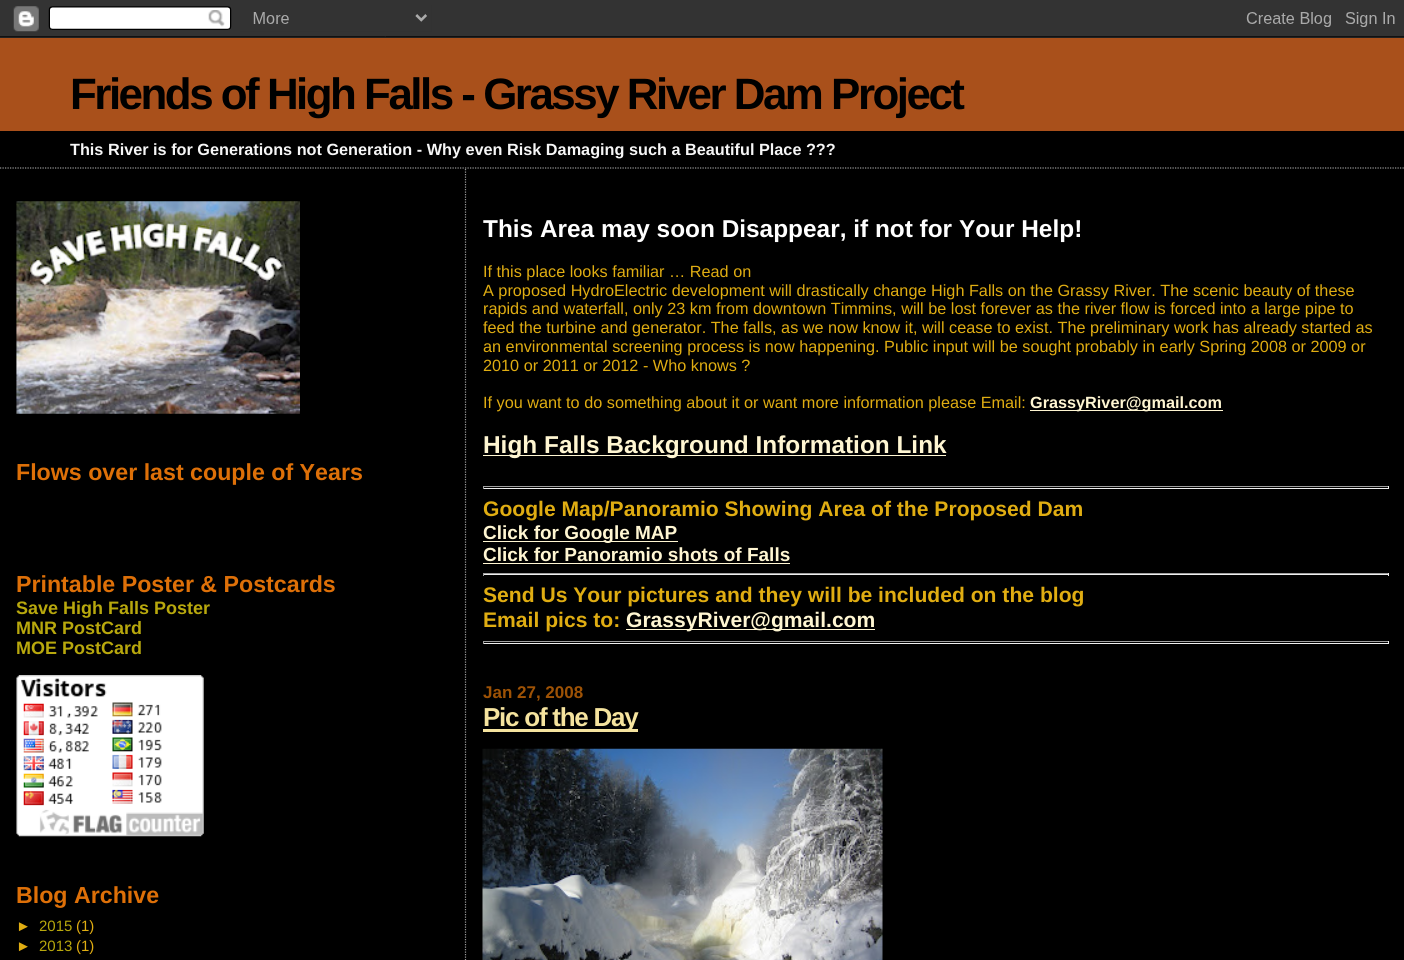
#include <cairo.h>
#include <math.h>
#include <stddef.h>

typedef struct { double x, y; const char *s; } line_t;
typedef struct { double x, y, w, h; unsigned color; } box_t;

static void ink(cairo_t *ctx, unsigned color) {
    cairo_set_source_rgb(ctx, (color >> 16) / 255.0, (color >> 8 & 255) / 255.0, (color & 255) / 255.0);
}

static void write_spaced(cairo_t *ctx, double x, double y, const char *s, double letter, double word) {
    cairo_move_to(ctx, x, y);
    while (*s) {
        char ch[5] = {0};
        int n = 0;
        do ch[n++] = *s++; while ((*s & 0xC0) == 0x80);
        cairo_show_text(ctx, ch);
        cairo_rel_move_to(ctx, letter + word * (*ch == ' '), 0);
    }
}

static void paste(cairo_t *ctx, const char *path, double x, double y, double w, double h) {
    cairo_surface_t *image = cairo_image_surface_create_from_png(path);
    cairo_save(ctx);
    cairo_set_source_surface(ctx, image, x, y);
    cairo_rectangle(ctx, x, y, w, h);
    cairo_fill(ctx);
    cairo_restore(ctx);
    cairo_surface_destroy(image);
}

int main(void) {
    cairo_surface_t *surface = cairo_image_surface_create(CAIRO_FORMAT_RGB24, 1404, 960);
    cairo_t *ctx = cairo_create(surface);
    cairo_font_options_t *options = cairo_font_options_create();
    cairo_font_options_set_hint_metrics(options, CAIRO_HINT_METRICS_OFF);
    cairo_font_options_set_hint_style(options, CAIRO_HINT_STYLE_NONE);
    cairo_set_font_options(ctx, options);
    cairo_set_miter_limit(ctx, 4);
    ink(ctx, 0x000000);
    cairo_paint(ctx);
    paste(ctx, "media/1.png", 0, 0, 1404, 38);
    cairo_new_path(ctx);
    cairo_move_to(ctx, 0, 168);
    cairo_line_to(ctx, 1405, 168);
    ink(ctx, 0x999999);
    cairo_set_line_width(ctx, 1.2);
    cairo_set_dash(ctx, (double[]){1.25, 1.25}, 2, 0);
    cairo_stroke(ctx);
    ink(ctx, 0xA9501B);
    cairo_rectangle(ctx, 0, 38, 1404, 93);
    cairo_fill(ctx);
    cairo_select_font_face(ctx, "Liberation Sans", CAIRO_FONT_SLANT_NORMAL, CAIRO_FONT_WEIGHT_BOLD);
    cairo_set_font_size(ctx, 43.9);
    ink(ctx, 0x000000);
    write_spaced(ctx, 70, 109, "Friends of High Falls - Grassy River Dam Project", -2.5, 0);
    cairo_set_font_size(ctx, 16.25);
    ink(ctx, 0xF6F6F6);
    cairo_move_to(ctx, 70, 155);
    cairo_show_text(ctx, "This River is for Generations not Generation - Why even Risk Damaging such a Beautiful Place ?\077?");
    paste(ctx, "media/2.png", 16, 201, 284, 213);
    cairo_set_font_size(ctx, 23.2);
    ink(ctx, 0xDE7008);
    cairo_move_to(ctx, 16, 480);
    cairo_show_text(ctx, "Flows over last couple of Years");
    cairo_move_to(ctx, 16, 592);
    cairo_show_text(ctx, "Printable Poster & Postcards");
    cairo_set_font_size(ctx, 18);
    ink(ctx, 0xB8A80D);
    {
        static const line_t items[] = {
            {16, 614, "Save High Falls Poster"},
            {16, 634, "MNR PostCard"},
            {16, 654, "MOE PostCard"},
        };
        for (size_t i = 0; i < sizeof items / sizeof *items; i++) {
            cairo_move_to(ctx, items[i].x, items[i].y);
            cairo_show_text(ctx, items[i].s);
        }
    }
    paste(ctx, "media/3.png", 16, 675, 188, 162);
    cairo_set_font_size(ctx, 23.2);
    ink(ctx, 0xDE7008);
    cairo_move_to(ctx, 16, 903);
    cairo_show_text(ctx, "Blog Archive");
    cairo_select_font_face(ctx, "Liberation Sans", CAIRO_FONT_SLANT_NORMAL, CAIRO_FONT_WEIGHT_NORMAL);
    cairo_set_font_size(ctx, 15);
    ink(ctx, 0xE0AD12);
    cairo_move_to(ctx, 16, 931);
    cairo_show_text(ctx, "►");
    ink(ctx, 0xB8A80D);
    cairo_move_to(ctx, 39, 931);
    cairo_show_text(ctx, "2015");
    ink(ctx, 0xE0AD12);
    cairo_move_to(ctx, 76, 931);
    cairo_show_text(ctx, "(1)");
    cairo_move_to(ctx, 16, 951);
    cairo_show_text(ctx, "►");
    ink(ctx, 0xB8A80D);
    cairo_move_to(ctx, 39, 951);
    cairo_show_text(ctx, "2013");
    ink(ctx, 0xE0AD12);
    cairo_move_to(ctx, 76, 951);
    cairo_show_text(ctx, "(1)");
    cairo_new_path(ctx);
    cairo_move_to(ctx, 465.5, 169);
    cairo_line_to(ctx, 465.5, 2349);
    ink(ctx, 0x999999);
    cairo_stroke(ctx);
    cairo_select_font_face(ctx, "Liberation Sans", CAIRO_FONT_SLANT_NORMAL, CAIRO_FONT_WEIGHT_BOLD);
    cairo_set_font_size(ctx, 24.4);
    ink(ctx, 0xFFFFFF);
    cairo_move_to(ctx, 483, 237);
    cairo_show_text(ctx, "This Area may soon Disappear, if not for Your Help!");
    cairo_select_font_face(ctx, "Liberation Sans", CAIRO_FONT_SLANT_NORMAL, CAIRO_FONT_WEIGHT_NORMAL);
    cairo_set_font_size(ctx, 16.25);
    ink(ctx, 0xE0AD12);
    {
        static const line_t items[] = {
            {483, 277, "If this place looks familiar … Read on"},
            {483, 296, "A proposed HydroElectric development will drastically change High Falls on the Grassy River. The scenic beauty of these"},
            {483, 314, "rapids and waterfall, only 23 km from downtown Timmins, will be lost forever as the river flow is forced into a large pipe to"},
            {483, 333, "feed the turbine and generator. The falls, as we now know it, will cease to exist. The preliminary work has already started as"},
            {483, 352, "an environmental screening process is now happening. Public input will be sought probably in early Spring 2008 or 2009 or"},
            {483, 371, "2010 or 2011 or 2012 - Who knows ?"},
            {483, 408, "If you want to do something about it or want more information please Email:"},
        };
        for (size_t i = 0; i < sizeof items / sizeof *items; i++) {
            cairo_move_to(ctx, items[i].x, items[i].y);
            cairo_show_text(ctx, items[i].s);
        }
    }
    ink(ctx, 0xFFF6D2);
    cairo_rectangle(ctx, 1030, 410, 193, 1);
    cairo_fill(ctx);
    cairo_select_font_face(ctx, "Liberation Sans", CAIRO_FONT_SLANT_NORMAL, CAIRO_FONT_WEIGHT_BOLD);
    cairo_move_to(ctx, 1030, 408);
    cairo_show_text(ctx, "GrassyRiver@gmail.com");
    cairo_rectangle(ctx, 483, 455, 463, 1);
    cairo_fill(ctx);
    cairo_set_font_size(ctx, 24.4);
    cairo_move_to(ctx, 483, 453);
    cairo_show_text(ctx, "High Falls Background Information Link");
    {
        static const box_t items[] = {
            {483, 486, 906, 1, 0x9F9F9F},
            {1388, 486, 1, 3, 0xEEEEEE},
            {483, 488, 906, 1, 0xEEEEEE},
            {483, 486, 1, 3, 0x9F9F9F},
        };
        for (size_t i = 0; i < sizeof items / sizeof *items; i++) {
            ink(ctx, items[i].color);
            cairo_rectangle(ctx, items[i].x, items[i].y, items[i].w, items[i].h);
            cairo_fill(ctx);
        }
    }
    cairo_set_font_size(ctx, 21.1);
    ink(ctx, 0xE0AD12);
    cairo_move_to(ctx, 483, 516);
    cairo_show_text(ctx, "Google Map/Panoramio Showing Area of the Proposed Dam");
    ink(ctx, 0xFFF6D2);
    cairo_rectangle(ctx, 483, 541, 195, 1);
    cairo_fill(ctx);
    cairo_set_font_size(ctx, 19);
    cairo_move_to(ctx, 483, 539);
    cairo_show_text(ctx, "Click for Google MAP");
    cairo_move_to(ctx, 483, 561);
    cairo_show_text(ctx, "Click for Panoramio shots of Falls");
    {
        static const box_t items[] = {
            {483, 563, 307, 1, 0xFFF6D2},
            {483, 573, 906, 1, 0x9F9F9F},
            {1388, 573, 1, 3, 0xEEEEEE},
            {483, 574, 906, 1, 0xEEEEEE},
            {483, 573, 1, 3, 0x9F9F9F},
        };
        for (size_t i = 0; i < sizeof items / sizeof *items; i++) {
            ink(ctx, items[i].color);
            cairo_rectangle(ctx, items[i].x, items[i].y, items[i].w, items[i].h);
            cairo_fill(ctx);
        }
    }
    cairo_set_font_size(ctx, 21.1);
    ink(ctx, 0xE0AD12);
    cairo_move_to(ctx, 483, 602);
    cairo_show_text(ctx, "Send Us Your pictures and they will be included on the blog");
    cairo_move_to(ctx, 483, 627);
    cairo_show_text(ctx, "Email pics to:");
    ink(ctx, 0xFFF6D2);
    cairo_rectangle(ctx, 626, 629, 249, 1);
    cairo_fill(ctx);
    cairo_move_to(ctx, 626, 627);
    cairo_show_text(ctx, "GrassyRiver@gmail.com");
    {
        static const box_t items[] = {
            {483, 641, 906, 1, 0x9F9F9F},
            {1388, 641, 1, 3, 0xEEEEEE},
            {483, 643, 906, 1, 0xEEEEEE},
            {483, 641, 1, 3, 0x9F9F9F},
        };
        for (size_t i = 0; i < sizeof items / sizeof *items; i++) {
            ink(ctx, items[i].color);
            cairo_rectangle(ctx, items[i].x, items[i].y, items[i].w, items[i].h);
            cairo_fill(ctx);
        }
    }
    cairo_set_font_size(ctx, 17);
    ink(ctx, 0x9E5205);
    cairo_move_to(ctx, 483, 698);
    cairo_show_text(ctx, "Jan 27, 2008");
    ink(ctx, 0xF5E39E);
    cairo_rectangle(ctx, 483, 729, 155, 3);
    cairo_fill(ctx);
    cairo_set_font_size(ctx, 26);
    write_spaced(ctx, 483, 726, "Pic of the Day", -1.25, 0);
    paste(ctx, "media/4.png", 482, 748, 401, 212);
    cairo_surface_write_to_png(surface, "image.png");
    cairo_font_options_destroy(options);
    cairo_destroy(ctx);
    cairo_surface_destroy(surface);
    return 0;
}
